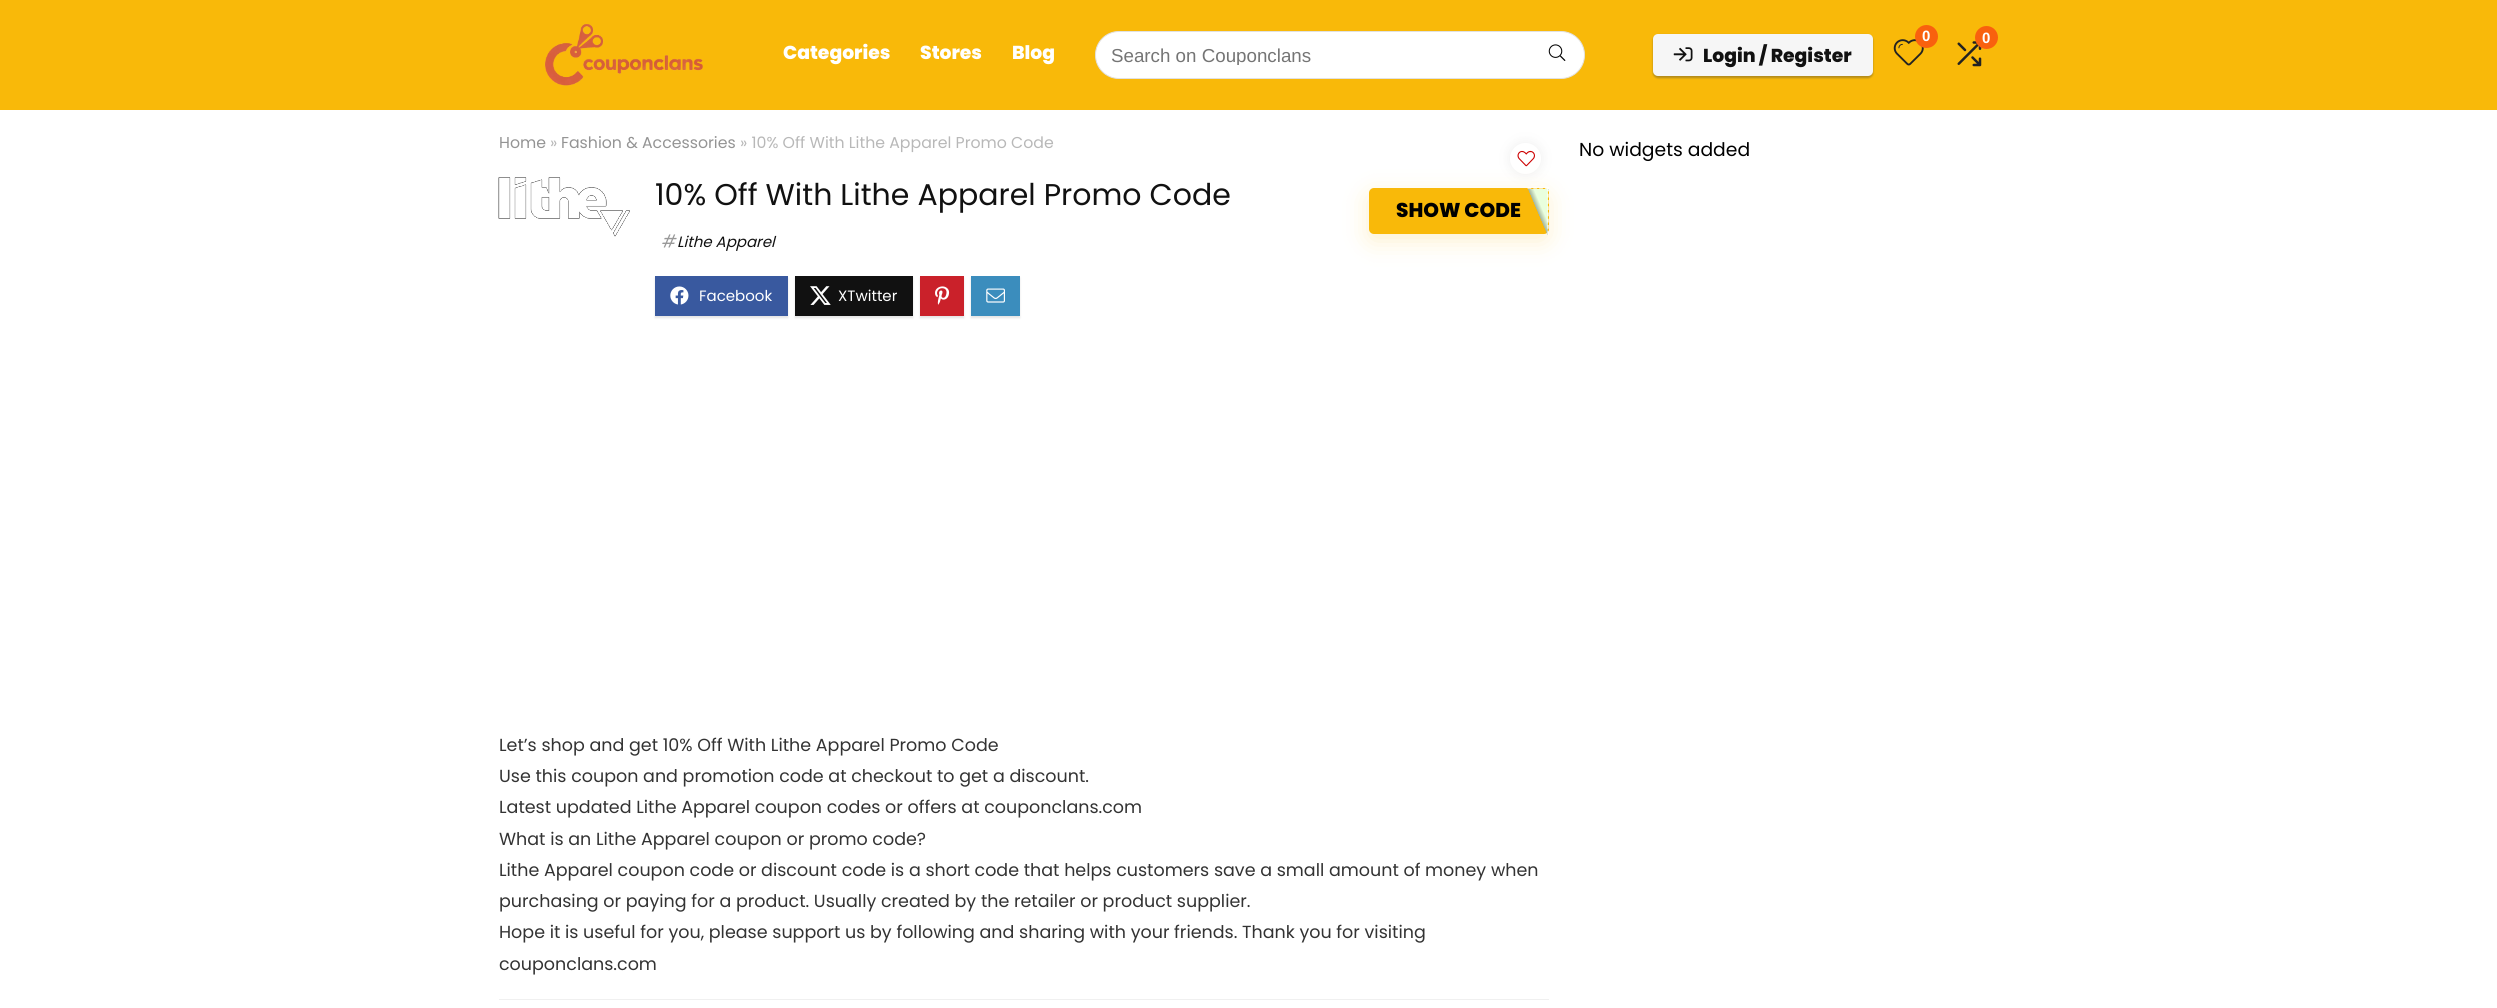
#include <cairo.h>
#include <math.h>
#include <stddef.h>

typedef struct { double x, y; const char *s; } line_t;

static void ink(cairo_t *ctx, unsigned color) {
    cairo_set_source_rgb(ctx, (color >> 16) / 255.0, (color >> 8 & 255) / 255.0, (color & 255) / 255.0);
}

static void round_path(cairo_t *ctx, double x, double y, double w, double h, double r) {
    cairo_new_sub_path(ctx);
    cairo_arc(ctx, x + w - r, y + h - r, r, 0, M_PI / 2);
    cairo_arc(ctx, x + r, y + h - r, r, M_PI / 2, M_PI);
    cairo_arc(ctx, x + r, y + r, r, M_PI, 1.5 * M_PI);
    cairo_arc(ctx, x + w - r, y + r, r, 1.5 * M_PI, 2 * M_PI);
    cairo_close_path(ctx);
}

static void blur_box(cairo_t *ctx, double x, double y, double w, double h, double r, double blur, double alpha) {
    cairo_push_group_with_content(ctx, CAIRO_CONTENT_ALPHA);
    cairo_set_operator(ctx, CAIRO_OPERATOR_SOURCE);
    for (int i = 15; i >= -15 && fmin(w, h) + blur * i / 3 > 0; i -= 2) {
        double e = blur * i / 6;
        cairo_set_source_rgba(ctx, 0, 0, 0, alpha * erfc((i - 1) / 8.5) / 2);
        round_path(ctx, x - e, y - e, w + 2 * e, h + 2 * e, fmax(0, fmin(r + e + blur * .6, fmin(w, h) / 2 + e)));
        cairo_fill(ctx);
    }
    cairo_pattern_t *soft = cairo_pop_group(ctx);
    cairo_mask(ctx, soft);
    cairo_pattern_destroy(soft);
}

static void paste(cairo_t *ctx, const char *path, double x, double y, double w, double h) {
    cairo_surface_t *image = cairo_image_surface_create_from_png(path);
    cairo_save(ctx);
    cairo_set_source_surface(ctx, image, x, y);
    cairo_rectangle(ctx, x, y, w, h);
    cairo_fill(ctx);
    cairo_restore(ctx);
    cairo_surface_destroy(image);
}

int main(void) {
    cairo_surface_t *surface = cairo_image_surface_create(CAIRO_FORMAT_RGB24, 2497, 1008);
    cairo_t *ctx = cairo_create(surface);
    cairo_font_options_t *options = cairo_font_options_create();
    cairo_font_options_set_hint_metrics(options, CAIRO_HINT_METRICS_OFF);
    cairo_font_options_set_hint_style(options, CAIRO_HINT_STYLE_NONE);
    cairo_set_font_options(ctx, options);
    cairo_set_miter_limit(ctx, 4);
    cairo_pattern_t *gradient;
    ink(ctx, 0xFFFFFF);
    cairo_paint(ctx);
    ink(ctx, 0xF9B909);
    cairo_rectangle(ctx, 0, 0, 2497, 110);
    cairo_fill(ctx);
    paste(ctx, "media/1.png", 544, 24, 159, 62);
    cairo_select_font_face(ctx, "Poppins ExtraBold", CAIRO_FONT_SLANT_NORMAL, CAIRO_FONT_WEIGHT_NORMAL);
    cairo_set_font_size(ctx, 18.75);
    ink(ctx, 0xFFFFFF);
    {
        static const line_t items[] = {
            {783, 59, "Categories"},
            {920, 59, "Stores"},
            {1012, 59, "Blog"},
        };
        for (size_t i = 0; i < sizeof items / sizeof *items; i++) {
            cairo_move_to(ctx, items[i].x, items[i].y);
            cairo_show_text(ctx, items[i].s);
        }
    }
    round_path(ctx, 1095.5, 31.5, 489, 47, 23.5);
    cairo_fill_preserve(ctx);
    ink(ctx, 0xE1E1E1);
    cairo_set_line_width(ctx, 1);
    cairo_stroke(ctx);
    cairo_save(ctx);
    cairo_rectangle(ctx, 1111, 44, 417, 21);
    cairo_clip(ctx);
    cairo_select_font_face(ctx, "Liberation Sans", CAIRO_FONT_SLANT_NORMAL, CAIRO_FONT_WEIGHT_NORMAL);
    ink(ctx, 0x757575);
    cairo_move_to(ctx, 1111, 62);
    cairo_show_text(ctx, "Search on Couponclans");
    cairo_restore(ctx);
    paste(ctx, "media/2.png", 1548, 44, 18, 17);
    paste(ctx, "media/3.png", 1893, 39, 31, 27);
    ink(ctx, 0xF9610E);
    cairo_arc(ctx, 1926.5, 36.5, 11.5, 0, 2 * M_PI);
    cairo_fill(ctx);
    cairo_select_font_face(ctx, "Liberation Sans", CAIRO_FONT_SLANT_NORMAL, CAIRO_FONT_WEIGHT_BOLD);
    cairo_set_font_size(ctx, 15);
    ink(ctx, 0xFFFFFF);
    cairo_move_to(ctx, 1922, 41);
    cairo_show_text(ctx, "0");
    paste(ctx, "media/4.png", 1957, 41, 25, 26);
    ink(ctx, 0xF9610E);
    cairo_arc(ctx, 1986.5, 37.5, 11.5, 0, 2 * M_PI);
    cairo_fill(ctx);
    ink(ctx, 0xFFFFFF);
    cairo_move_to(ctx, 1982, 43);
    cairo_show_text(ctx, "0");
    ink(ctx, 0x000000);
    blur_box(ctx, 1653, 35, 220, 43, 5, 1, 0.08);
    ink(ctx, 0x3C4043);
    blur_box(ctx, 1653, 35, 220, 43, 5, 1, 0.3);
    ink(ctx, 0xF6F6F6);
    round_path(ctx, 1653, 34, 220, 42, 5);
    cairo_fill(ctx);
    paste(ctx, "media/5.png", 1673, 47, 20, 15);
    cairo_select_font_face(ctx, "Poppins ExtraBold", CAIRO_FONT_SLANT_NORMAL, CAIRO_FONT_WEIGHT_NORMAL);
    cairo_set_font_size(ctx, 18.75);
    ink(ctx, 0x111111);
    cairo_move_to(ctx, 1703, 62);
    cairo_show_text(ctx, "Login / Register");
    cairo_select_font_face(ctx, "Poppins", CAIRO_FONT_SLANT_NORMAL, CAIRO_FONT_WEIGHT_NORMAL);
    cairo_set_font_size(ctx, 15.75);
    ink(ctx, 0x949494);
    cairo_move_to(ctx, 499, 148);
    cairo_show_text(ctx, "Home");
    ink(ctx, 0xB8B8B8);
    cairo_move_to(ctx, 550, 148);
    cairo_show_text(ctx, "»");
    ink(ctx, 0x949494);
    cairo_move_to(ctx, 561, 148);
    cairo_show_text(ctx, "Fashion & Accessories");
    ink(ctx, 0xB8B8B8);
    cairo_move_to(ctx, 740, 148);
    cairo_show_text(ctx, "» 10% Off With Lithe Apparel Promo Code");
    ink(ctx, 0xEFEFEF);
    blur_box(ctx, 1510, 143, 31, 31, 15.5, 6, 1);
    ink(ctx, 0xFFFFFF);
    cairo_arc(ctx, 1525.5, 158.5, 15.5, 0, 2 * M_PI);
    cairo_fill(ctx);
    paste(ctx, "media/6.png", 1517, 150, 18, 17);
    paste(ctx, "media/7.png", 498, 177, 132, 60);
    cairo_set_font_size(ctx, 30);
    ink(ctx, 0x111111);
    cairo_move_to(ctx, 655, 205);
    cairo_show_text(ctx, "10% Off With Lithe Apparel Promo Code");
    paste(ctx, "media/8.png", 662, 234, 15, 14);
    cairo_select_font_face(ctx, "Poppins", CAIRO_FONT_SLANT_ITALIC, CAIRO_FONT_WEIGHT_NORMAL);
    cairo_set_font_size(ctx, 15);
    cairo_move_to(ctx, 677, 247);
    cairo_show_text(ctx, "Lithe Apparel");
    ink(ctx, 0xE4E4E4);
    blur_box(ctx, 655, 278, 133, 40, 0, 1, 1);
    ink(ctx, 0x39599F);
    cairo_rectangle(ctx, 655, 276, 133, 40);
    cairo_fill(ctx);
    paste(ctx, "media/9.png", 670, 286, 19, 19);
    cairo_select_font_face(ctx, "Poppins", CAIRO_FONT_SLANT_NORMAL, CAIRO_FONT_WEIGHT_NORMAL);
    ink(ctx, 0xFFFFFF);
    cairo_move_to(ctx, 699, 301);
    cairo_show_text(ctx, "Facebook");
    ink(ctx, 0xE4E4E4);
    blur_box(ctx, 795, 278, 118, 40, 0, 1, 1);
    ink(ctx, 0x111111);
    cairo_rectangle(ctx, 795, 276, 118, 40);
    cairo_fill(ctx);
    paste(ctx, "media/10.png", 810, 286, 21, 19);
    ink(ctx, 0xFFFFFF);
    cairo_move_to(ctx, 838, 301);
    cairo_show_text(ctx, "XTwitter");
    ink(ctx, 0xE4E4E4);
    blur_box(ctx, 920, 278, 44, 40, 0, 1, 1);
    ink(ctx, 0xCA212A);
    cairo_rectangle(ctx, 920, 276, 44, 40);
    cairo_fill(ctx);
    paste(ctx, "media/11.png", 935, 286, 15, 19);
    ink(ctx, 0xE4E4E4);
    blur_box(ctx, 971, 278, 49, 40, 0, 1, 1);
    ink(ctx, 0x3B8DBD);
    cairo_rectangle(ctx, 971, 276, 49, 40);
    cairo_fill(ctx);
    paste(ctx, "media/12.png", 986, 288, 19, 15);
    ink(ctx, 0xF9B909);
    blur_box(ctx, 1368, 195, 180, 46, 5, 12, 0.2);
    ink(ctx, 0xF9B909);
    round_path(ctx, 1369, 188, 180, 46, 5);
    cairo_fill(ctx);
    cairo_select_font_face(ctx, "Poppins ExtraBold", CAIRO_FONT_SLANT_NORMAL, CAIRO_FONT_WEIGHT_NORMAL);
    cairo_set_font_size(ctx, 20);
    ink(ctx, 0x000000);
    cairo_move_to(ctx, 1396, 217);
    cairo_show_text(ctx, "SHOW CODE");
    gradient = cairo_pattern_create_linear(1521, 219, 1554, 205);
    cairo_pattern_add_color_stop_rgba(gradient, 0, 1, 1, 1, 0);
    cairo_pattern_add_color_stop_rgba(gradient, 0.5, 0.651, 0.718, 0.616, 0);
    cairo_pattern_add_color_stop_rgba(gradient, 0.51, 0.651, 0.718, 0.616, 1);
    cairo_pattern_add_color_stop_rgba(gradient, 0.66, 0.914, 1, 0.867, 1);
    cairo_set_source(ctx, gradient);
    cairo_pattern_destroy(gradient);
    cairo_rectangle(ctx, 1528, 189, 20, 46);
    cairo_fill(ctx);
    gradient = cairo_pattern_create_linear(1541, 219, 1574, 205);
    cairo_pattern_add_color_stop_rgba(gradient, 0, 1, 1, 1, 0);
    cairo_pattern_add_color_stop_rgba(gradient, 0.5, 0.651, 0.718, 0.616, 0);
    cairo_pattern_add_color_stop_rgba(gradient, 0.51, 0.651, 0.718, 0.616, 1);
    cairo_pattern_add_color_stop_rgba(gradient, 0.66, 0.914, 1, 0.867, 1);
    cairo_set_source(ctx, gradient);
    cairo_pattern_destroy(gradient);
    cairo_rectangle(ctx, 1548, 189, 1, 2);
    cairo_fill(ctx);
    cairo_new_path(ctx);
    cairo_move_to(ctx, 1527.5, 188);
    cairo_line_to(ctx, 1549, 188);
    ink(ctx, 0xFFFFFF);
    cairo_set_line_width(ctx, 1.2);
    cairo_set_dash(ctx, (double[]){3.75, 2.09}, 2, 0);
    cairo_stroke(ctx);
    cairo_new_path(ctx);
    cairo_move_to(ctx, 1548, 187.5);
    cairo_line_to(ctx, 1548, 235);
    cairo_set_dash(ctx, (double[]){3.75, 2.5}, 2, 0);
    cairo_stroke(ctx);
    cairo_select_font_face(ctx, "Poppins", CAIRO_FONT_SLANT_NORMAL, CAIRO_FONT_WEIGHT_NORMAL);
    cairo_set_font_size(ctx, 17.5);
    ink(ctx, 0x333333);
    {
        static const line_t items[] = {
            {499, 751, "Let’s shop and get 10% Off With Lithe Apparel Promo Code"},
            {499, 782, "Use this coupon and promotion code at checkout to get a discount."},
            {499, 813, "Latest updated Lithe Apparel coupon codes or offers at couponclans.com"},
            {499, 845, "What is an Lithe Apparel coupon or promo code?"},
            {499, 876, "Lithe Apparel coupon code or discount code is a short code that helps customers save a small amount of money when"},
            {499, 907, "purchasing or paying for a product. Usually created by the retailer or product supplier."},
            {499, 938, "Hope it is useful for you, please support us by following and sharing with your friends. Thank you for visiting"},
            {499, 970, "couponclans.com"},
        };
        for (size_t i = 0; i < sizeof items / sizeof *items; i++) {
            cairo_move_to(ctx, items[i].x, items[i].y);
            cairo_show_text(ctx, items[i].s);
        }
    }
    ink(ctx, 0xF0F0F0);
    cairo_rectangle(ctx, 499, 999, 1050, 1);
    cairo_fill(ctx);
    cairo_set_font_size(ctx, 18.75);
    ink(ctx, 0x000000);
    cairo_move_to(ctx, 1579, 156);
    cairo_show_text(ctx, "No widgets added");
    cairo_surface_write_to_png(surface, "image.png");
    cairo_font_options_destroy(options);
    cairo_destroy(ctx);
    cairo_surface_destroy(surface);
    return 0;
}
